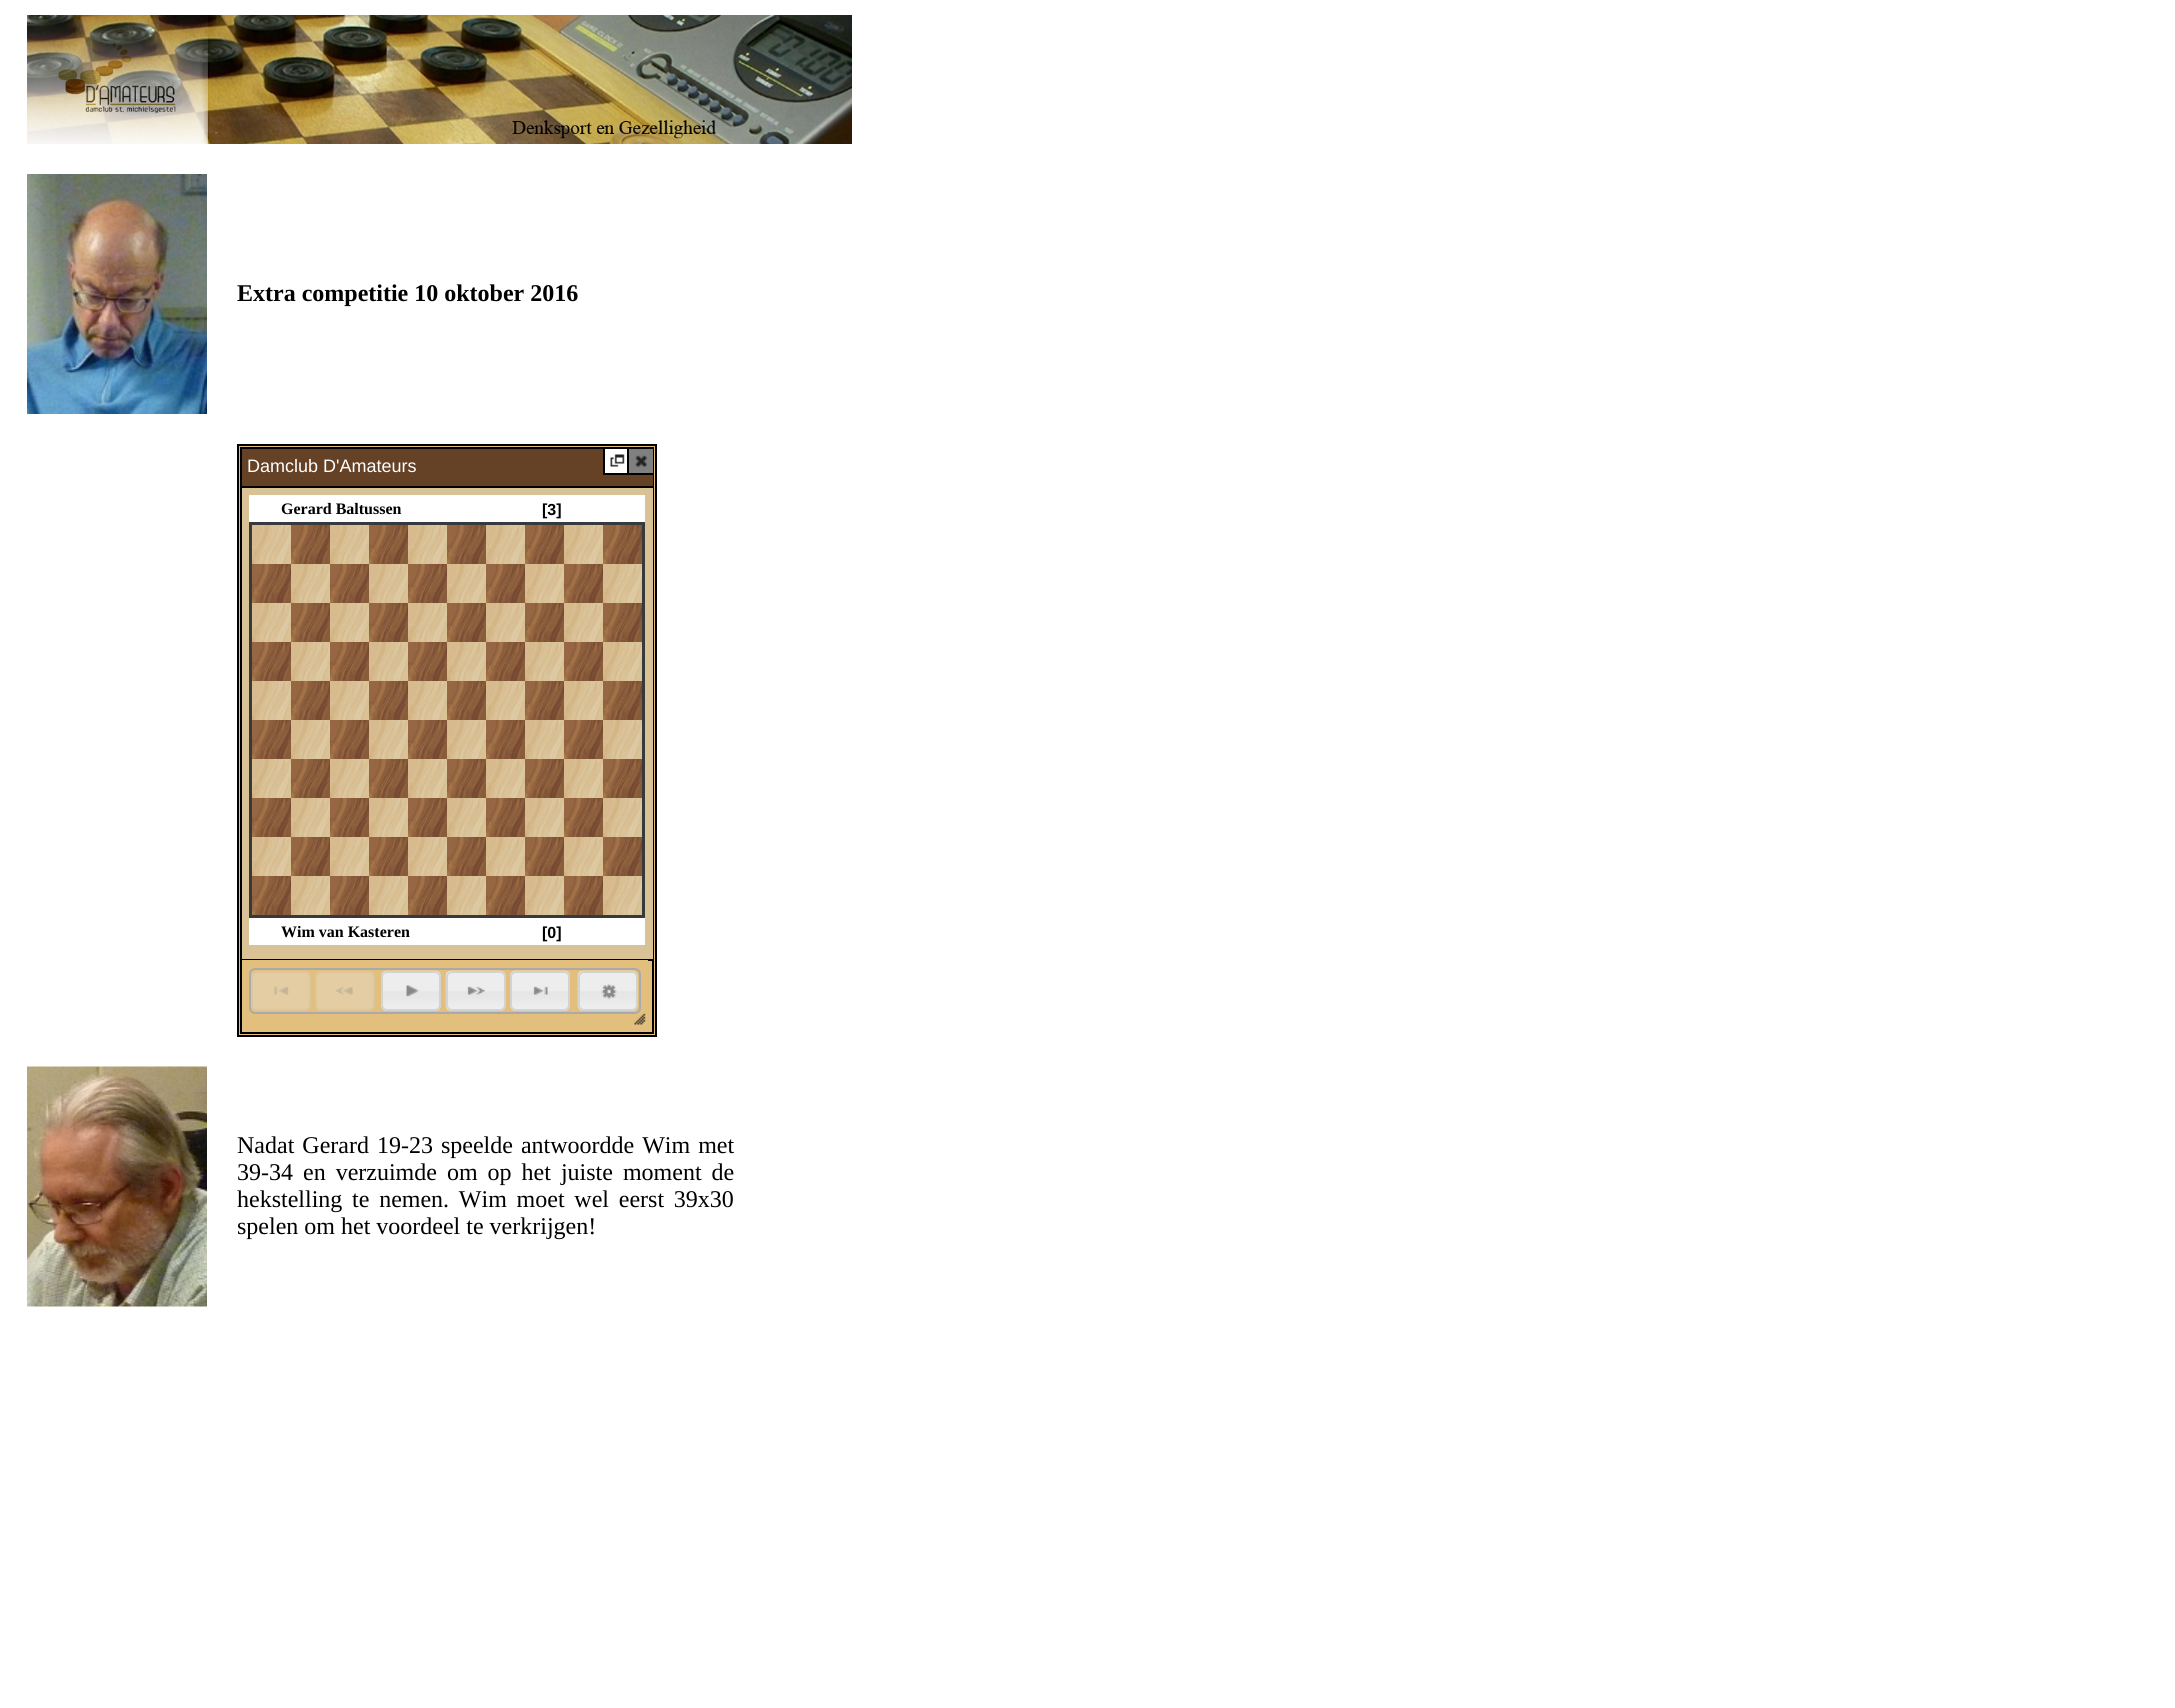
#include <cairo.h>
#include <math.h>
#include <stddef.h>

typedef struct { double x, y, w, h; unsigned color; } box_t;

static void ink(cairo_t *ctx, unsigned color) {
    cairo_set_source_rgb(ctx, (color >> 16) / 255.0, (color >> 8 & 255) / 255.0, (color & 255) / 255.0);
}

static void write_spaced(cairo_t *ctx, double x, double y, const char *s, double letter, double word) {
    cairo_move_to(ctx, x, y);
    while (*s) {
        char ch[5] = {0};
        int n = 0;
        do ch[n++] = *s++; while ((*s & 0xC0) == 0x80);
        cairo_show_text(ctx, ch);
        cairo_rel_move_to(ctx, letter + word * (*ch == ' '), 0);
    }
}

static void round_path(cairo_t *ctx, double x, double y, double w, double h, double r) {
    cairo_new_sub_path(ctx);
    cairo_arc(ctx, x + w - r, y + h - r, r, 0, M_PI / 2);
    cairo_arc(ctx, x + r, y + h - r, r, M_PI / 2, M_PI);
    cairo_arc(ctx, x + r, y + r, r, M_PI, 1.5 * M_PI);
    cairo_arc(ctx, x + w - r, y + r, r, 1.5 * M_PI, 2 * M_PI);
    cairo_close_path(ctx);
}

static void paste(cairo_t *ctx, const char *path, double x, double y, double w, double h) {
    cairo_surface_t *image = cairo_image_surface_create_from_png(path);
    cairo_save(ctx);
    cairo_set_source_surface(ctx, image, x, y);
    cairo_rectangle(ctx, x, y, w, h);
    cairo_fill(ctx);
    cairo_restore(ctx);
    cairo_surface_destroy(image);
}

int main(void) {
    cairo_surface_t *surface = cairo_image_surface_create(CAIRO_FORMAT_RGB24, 2175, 1708);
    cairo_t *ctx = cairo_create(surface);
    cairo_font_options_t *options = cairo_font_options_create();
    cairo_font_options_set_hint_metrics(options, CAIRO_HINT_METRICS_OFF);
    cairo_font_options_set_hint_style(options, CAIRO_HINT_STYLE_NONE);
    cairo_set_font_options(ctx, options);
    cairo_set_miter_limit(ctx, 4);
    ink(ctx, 0xFFFFFF);
    cairo_paint(ctx);
    paste(ctx, "media/1.png", 27, 15, 825, 129);
    paste(ctx, "media/2.png", 27, 174, 180, 240);
    cairo_select_font_face(ctx, "Liberation Serif", CAIRO_FONT_SLANT_NORMAL, CAIRO_FONT_WEIGHT_BOLD);
    cairo_set_font_size(ctx, 24);
    ink(ctx, 0x000000);
    cairo_move_to(ctx, 237, 301);
    cairo_show_text(ctx, "Extra competitie 10 oktober 2016");
    ink(ctx, 0xE3BF7D);
    cairo_rectangle(ctx, 238, 445, 418, 591);
    cairo_fill_preserve(ctx);
    ink(ctx, 0x000000);
    cairo_stroke(ctx);
    cairo_rectangle(ctx, 241, 448, 412, 585);
    cairo_stroke(ctx);
    ink(ctx, 0x654226);
    cairo_rectangle(ctx, 242, 449, 411, 37);
    cairo_fill(ctx);
    ink(ctx, 0xFFFFFF);
    cairo_rectangle(ctx, 605, 449, 22, 24);
    cairo_fill(ctx);
    paste(ctx, "media/3.png", 610, 454, 15, 13);
    {
        static const box_t items[] = {
            {603, 473, 50, 2, 0x000000},
            {603, 449, 2, 25, 0x000000},
            {242, 486, 411, 2, 0x000000},
        };
        for (size_t i = 0; i < sizeof items / sizeof *items; i++) {
            ink(ctx, items[i].color);
            cairo_rectangle(ctx, items[i].x, items[i].y, items[i].w, items[i].h);
            cairo_fill(ctx);
        }
    }
    cairo_select_font_face(ctx, "Liberation Sans", CAIRO_FONT_SLANT_NORMAL, CAIRO_FONT_WEIGHT_NORMAL);
    cairo_set_font_size(ctx, 18);
    ink(ctx, 0xFFFFFF);
    cairo_move_to(ctx, 247, 472);
    cairo_show_text(ctx, "Damclub D'Amateurs");
    ink(ctx, 0x808080);
    cairo_rectangle(ctx, 629, 449, 24, 24);
    cairo_fill(ctx);
    paste(ctx, "media/4.png", 635, 455, 12, 12);
    {
        static const box_t items[] = {
            {627, 449, 2, 25, 0x000000},
            {242, 488, 411, 471, 0xDAC297},
            {242, 959, 411, 2, 0x000000},
            {249, 495, 396, 27, 0xFFFFFF},
        };
        for (size_t i = 0; i < sizeof items / sizeof *items; i++) {
            ink(ctx, items[i].color);
            cairo_rectangle(ctx, items[i].x, items[i].y, items[i].w, items[i].h);
            cairo_fill(ctx);
        }
    }
    cairo_select_font_face(ctx, "Liberation Serif", CAIRO_FONT_SLANT_NORMAL, CAIRO_FONT_WEIGHT_BOLD);
    cairo_set_font_size(ctx, 16);
    ink(ctx, 0x000000);
    cairo_move_to(ctx, 281, 514);
    cairo_show_text(ctx, "Gerard Baltussen");
    cairo_select_font_face(ctx, "Liberation Sans", CAIRO_FONT_SLANT_NORMAL, CAIRO_FONT_WEIGHT_BOLD);
    cairo_move_to(ctx, 542, 515);
    cairo_show_text(ctx, "[3]");
    cairo_rectangle(ctx, 250.5, 523.5, 393, 393);
    ink(ctx, 0x363A3D);
    cairo_set_line_width(ctx, 3);
    cairo_stroke(ctx);
    paste(ctx, "media/5.png", 252, 525, 39, 39);
    paste(ctx, "media/6.png", 291, 525, 39, 39);
    paste(ctx, "media/7.png", 330, 525, 39, 39);
    paste(ctx, "media/8.png", 369, 525, 39, 39);
    paste(ctx, "media/7.png", 408, 525, 39, 39);
    paste(ctx, "media/8.png", 447, 525, 39, 39);
    paste(ctx, "media/7.png", 486, 525, 39, 39);
    paste(ctx, "media/9.png", 525, 525, 39, 39);
    paste(ctx, "media/5.png", 564, 525, 39, 39);
    paste(ctx, "media/8.png", 603, 525, 39, 39);
    paste(ctx, "media/6.png", 252, 564, 39, 39);
    paste(ctx, "media/5.png", 291, 564, 39, 39);
    paste(ctx, "media/8.png", 330, 564, 39, 39);
    paste(ctx, "media/7.png", 369, 564, 39, 39);
    paste(ctx, "media/8.png", 408, 564, 39, 39);
    paste(ctx, "media/7.png", 447, 564, 39, 39);
    paste(ctx, "media/8.png", 486, 564, 39, 39);
    paste(ctx, "media/10.png", 525, 564, 39, 39);
    paste(ctx, "media/6.png", 564, 564, 39, 39);
    paste(ctx, "media/7.png", 603, 564, 39, 39);
    paste(ctx, "media/5.png", 252, 603, 39, 39);
    paste(ctx, "media/6.png", 291, 603, 39, 39);
    paste(ctx, "media/7.png", 330, 603, 39, 39);
    paste(ctx, "media/8.png", 369, 603, 39, 39);
    paste(ctx, "media/7.png", 408, 603, 39, 39);
    paste(ctx, "media/8.png", 447, 603, 39, 39);
    paste(ctx, "media/7.png", 486, 603, 39, 39);
    paste(ctx, "media/9.png", 525, 603, 39, 39);
    paste(ctx, "media/5.png", 564, 603, 39, 39);
    paste(ctx, "media/8.png", 603, 603, 39, 39);
    paste(ctx, "media/11.png", 252, 642, 39, 39);
    paste(ctx, "media/12.png", 291, 642, 39, 39);
    paste(ctx, "media/13.png", 330, 642, 39, 39);
    paste(ctx, "media/14.png", 369, 642, 39, 39);
    paste(ctx, "media/13.png", 408, 642, 39, 39);
    paste(ctx, "media/14.png", 447, 642, 39, 39);
    paste(ctx, "media/13.png", 486, 642, 39, 39);
    paste(ctx, "media/15.png", 525, 642, 39, 39);
    paste(ctx, "media/11.png", 564, 642, 39, 39);
    paste(ctx, "media/14.png", 603, 642, 39, 39);
    paste(ctx, "media/5.png", 252, 681, 39, 39);
    paste(ctx, "media/6.png", 291, 681, 39, 39);
    paste(ctx, "media/7.png", 330, 681, 39, 39);
    paste(ctx, "media/8.png", 369, 681, 39, 39);
    paste(ctx, "media/7.png", 408, 681, 39, 39);
    paste(ctx, "media/8.png", 447, 681, 39, 39);
    paste(ctx, "media/7.png", 486, 681, 39, 39);
    paste(ctx, "media/9.png", 525, 681, 39, 39);
    paste(ctx, "media/5.png", 564, 681, 39, 39);
    paste(ctx, "media/8.png", 603, 681, 39, 39);
    paste(ctx, "media/6.png", 252, 720, 39, 39);
    paste(ctx, "media/5.png", 291, 720, 39, 39);
    paste(ctx, "media/8.png", 330, 720, 39, 39);
    paste(ctx, "media/7.png", 369, 720, 39, 39);
    paste(ctx, "media/8.png", 408, 720, 39, 39);
    paste(ctx, "media/7.png", 447, 720, 39, 39);
    paste(ctx, "media/8.png", 486, 720, 39, 39);
    paste(ctx, "media/10.png", 525, 720, 39, 39);
    paste(ctx, "media/6.png", 564, 720, 39, 39);
    paste(ctx, "media/7.png", 603, 720, 39, 39);
    paste(ctx, "media/5.png", 252, 759, 39, 39);
    paste(ctx, "media/6.png", 291, 759, 39, 39);
    paste(ctx, "media/7.png", 330, 759, 39, 39);
    paste(ctx, "media/8.png", 369, 759, 39, 39);
    paste(ctx, "media/7.png", 408, 759, 39, 39);
    paste(ctx, "media/8.png", 447, 759, 39, 39);
    paste(ctx, "media/7.png", 486, 759, 39, 39);
    paste(ctx, "media/9.png", 525, 759, 39, 39);
    paste(ctx, "media/5.png", 564, 759, 39, 39);
    paste(ctx, "media/8.png", 603, 759, 39, 39);
    paste(ctx, "media/16.png", 252, 798, 39, 39);
    paste(ctx, "media/17.png", 291, 798, 39, 39);
    paste(ctx, "media/18.png", 330, 798, 39, 39);
    paste(ctx, "media/19.png", 369, 798, 39, 39);
    paste(ctx, "media/18.png", 408, 798, 39, 39);
    paste(ctx, "media/19.png", 447, 798, 39, 39);
    paste(ctx, "media/18.png", 486, 798, 39, 39);
    paste(ctx, "media/20.png", 525, 798, 39, 39);
    paste(ctx, "media/16.png", 564, 798, 39, 39);
    paste(ctx, "media/19.png", 603, 798, 39, 39);
    paste(ctx, "media/21.png", 252, 837, 39, 39);
    paste(ctx, "media/22.png", 291, 837, 39, 39);
    paste(ctx, "media/23.png", 330, 837, 39, 39);
    paste(ctx, "media/24.png", 369, 837, 39, 39);
    paste(ctx, "media/23.png", 408, 837, 39, 39);
    paste(ctx, "media/24.png", 447, 837, 39, 39);
    paste(ctx, "media/23.png", 486, 837, 39, 39);
    paste(ctx, "media/25.png", 525, 837, 39, 39);
    paste(ctx, "media/21.png", 564, 837, 39, 39);
    paste(ctx, "media/24.png", 603, 837, 39, 39);
    paste(ctx, "media/6.png", 252, 876, 39, 39);
    paste(ctx, "media/5.png", 291, 876, 39, 39);
    paste(ctx, "media/8.png", 330, 876, 39, 39);
    paste(ctx, "media/7.png", 369, 876, 39, 39);
    paste(ctx, "media/8.png", 408, 876, 39, 39);
    paste(ctx, "media/7.png", 447, 876, 39, 39);
    paste(ctx, "media/8.png", 486, 876, 39, 39);
    paste(ctx, "media/10.png", 525, 876, 39, 39);
    paste(ctx, "media/6.png", 564, 876, 39, 39);
    paste(ctx, "media/7.png", 603, 876, 39, 39);
    ink(ctx, 0xFFFFFF);
    cairo_rectangle(ctx, 249, 918, 396, 27);
    cairo_fill(ctx);
    cairo_select_font_face(ctx, "Liberation Serif", CAIRO_FONT_SLANT_NORMAL, CAIRO_FONT_WEIGHT_BOLD);
    ink(ctx, 0x000000);
    cairo_move_to(ctx, 281, 937);
    cairo_show_text(ctx, "Wim van Kasteren");
    cairo_select_font_face(ctx, "Liberation Sans", CAIRO_FONT_SLANT_NORMAL, CAIRO_FONT_WEIGHT_BOLD);
    cairo_move_to(ctx, 542, 938);
    cairo_show_text(ctx, "[0]");
    ink(ctx, 0xE3BF7D);
    cairo_rectangle(ctx, 242, 960, 406, 1);
    cairo_fill(ctx);
    round_path(ctx, 250, 969, 390, 44, 5);
    ink(ctx, 0xAAAAAA);
    cairo_set_line_width(ctx, 2);
    cairo_stroke(ctx);
    ink(ctx, 0xE4CDA2);
    round_path(ctx, 252, 972, 58, 38, 5);
    cairo_fill_preserve(ctx);
    ink(ctx, 0xDDC69B);
    cairo_stroke(ctx);
    paste(ctx, "media/26.png", 274, 986, 15, 9);
    ink(ctx, 0xE4CDA2);
    round_path(ctx, 316, 972, 58, 38, 5);
    cairo_fill_preserve(ctx);
    ink(ctx, 0xDDC69B);
    cairo_stroke(ctx);
    paste(ctx, "media/27.png", 336, 987, 17, 8);
    paste(ctx, "media/28.png", 381, 970, 60, 41);
    round_path(ctx, 382, 972, 58, 38, 5);
    ink(ctx, 0xD3D3D3);
    cairo_stroke(ctx);
    paste(ctx, "media/29.png", 406, 985, 13, 12);
    paste(ctx, "media/30.png", 445, 970, 61, 41);
    round_path(ctx, 447, 972, 58, 38, 5);
    cairo_stroke(ctx);
    paste(ctx, "media/31.png", 467, 986, 18, 9);
    paste(ctx, "media/28.png", 510, 970, 60, 41);
    round_path(ctx, 511, 972, 58, 38, 5);
    cairo_stroke(ctx);
    paste(ctx, "media/32.png", 533, 986, 15, 9);
    paste(ctx, "media/33.png", 577, 970, 61, 41);
    round_path(ctx, 579, 972, 58, 38, 5);
    cairo_stroke(ctx);
    paste(ctx, "media/34.png", 601, 984, 16, 16);
    paste(ctx, "media/35.png", 634, 1013, 12, 12);
    paste(ctx, "media/36.png", 27, 1066, 180, 241);
    cairo_select_font_face(ctx, "Liberation Serif", CAIRO_FONT_SLANT_NORMAL, CAIRO_FONT_WEIGHT_NORMAL);
    cairo_set_font_size(ctx, 24);
    ink(ctx, 0x000000);
    write_spaced(ctx, 237, 1153, "Nadat Gerard 19-23 speelde antwoordde Wim met", 0, 2);
    write_spaced(ctx, 237, 1180, "39-34 en verzuimde om op het juiste moment de", 0, 4);
    write_spaced(ctx, 237, 1207, "hekstelling te nemen. Wim moet wel eerst 39x30", 0, 3.75);
    cairo_move_to(ctx, 237, 1234);
    cairo_show_text(ctx, "spelen om het voordeel te verkrijgen!");
    cairo_surface_write_to_png(surface, "image.png");
    cairo_font_options_destroy(options);
    cairo_destroy(ctx);
    cairo_surface_destroy(surface);
    return 0;
}
